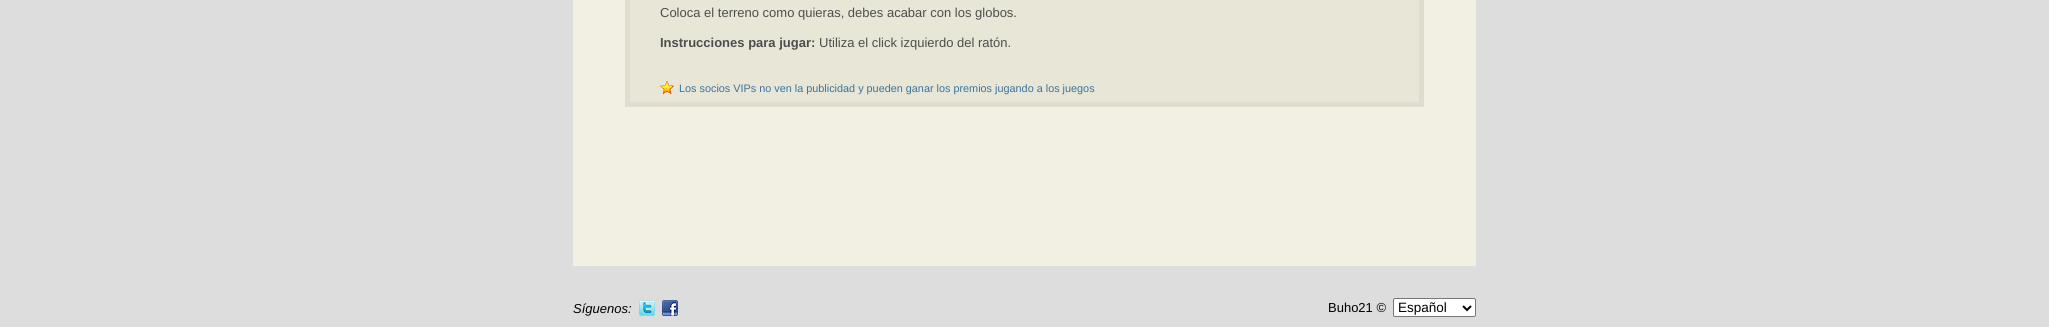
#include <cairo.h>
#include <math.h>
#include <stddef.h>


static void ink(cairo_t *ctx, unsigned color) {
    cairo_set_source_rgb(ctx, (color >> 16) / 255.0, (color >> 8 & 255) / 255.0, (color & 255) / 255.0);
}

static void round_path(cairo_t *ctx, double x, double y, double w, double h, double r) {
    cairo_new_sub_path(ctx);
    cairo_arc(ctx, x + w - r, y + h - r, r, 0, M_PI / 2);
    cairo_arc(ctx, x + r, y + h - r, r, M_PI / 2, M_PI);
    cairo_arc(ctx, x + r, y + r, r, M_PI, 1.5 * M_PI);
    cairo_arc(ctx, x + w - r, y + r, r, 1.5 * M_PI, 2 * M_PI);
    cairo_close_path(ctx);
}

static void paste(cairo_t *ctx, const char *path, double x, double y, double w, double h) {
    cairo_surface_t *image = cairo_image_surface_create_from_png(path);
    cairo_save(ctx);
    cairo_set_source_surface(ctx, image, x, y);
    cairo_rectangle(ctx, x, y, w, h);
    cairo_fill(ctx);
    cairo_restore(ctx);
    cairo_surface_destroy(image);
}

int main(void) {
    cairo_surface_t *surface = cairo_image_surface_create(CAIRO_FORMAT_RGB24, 2049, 327);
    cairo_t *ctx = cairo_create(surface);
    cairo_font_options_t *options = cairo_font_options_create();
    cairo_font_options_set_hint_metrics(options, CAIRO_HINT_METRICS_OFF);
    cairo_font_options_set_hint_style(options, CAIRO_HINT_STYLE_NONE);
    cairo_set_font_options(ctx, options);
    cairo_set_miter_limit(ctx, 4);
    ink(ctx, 0xDDDDDD);
    cairo_paint(ctx);
    ink(ctx, 0xF1F0E2);
    cairo_rectangle(ctx, 573, 0, 903, 266);
    cairo_fill(ctx);
    ink(ctx, 0xE7E6D7);
    cairo_rectangle(ctx, 627.5, -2.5, 794, 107);
    cairo_fill_preserve(ctx);
    ink(ctx, 0xDEDDD0);
    cairo_set_line_width(ctx, 5);
    cairo_stroke(ctx);
    cairo_select_font_face(ctx, "Liberation Sans", CAIRO_FONT_SLANT_NORMAL, CAIRO_FONT_WEIGHT_NORMAL);
    cairo_set_font_size(ctx, 13);
    ink(ctx, 0x4E4E4E);
    cairo_move_to(ctx, 660, 17);
    cairo_show_text(ctx, "Coloca el terreno como quieras, debes acabar con los globos.");
    cairo_select_font_face(ctx, "Liberation Sans", CAIRO_FONT_SLANT_NORMAL, CAIRO_FONT_WEIGHT_BOLD);
    cairo_move_to(ctx, 660, 47);
    cairo_show_text(ctx, "Instrucciones para jugar:");
    cairo_select_font_face(ctx, "Liberation Sans", CAIRO_FONT_SLANT_NORMAL, CAIRO_FONT_WEIGHT_NORMAL);
    cairo_move_to(ctx, 819, 47);
    cairo_show_text(ctx, "Utiliza el click izquierdo del ratón.");
    paste(ctx, "media/1.png", 660, 81, 14, 13);
    cairo_set_font_size(ctx, 10.85);
    ink(ctx, 0x3C739B);
    cairo_move_to(ctx, 679, 92);
    cairo_show_text(ctx, "Los socios VIPs no ven la publicidad y pueden ganar los premios jugando a los juegos");
    cairo_select_font_face(ctx, "Liberation Sans", CAIRO_FONT_SLANT_ITALIC, CAIRO_FONT_WEIGHT_NORMAL);
    cairo_set_font_size(ctx, 13);
    ink(ctx, 0x000000);
    cairo_move_to(ctx, 573, 313);
    cairo_show_text(ctx, "Síguenos:");
    paste(ctx, "media/2.png", 639, 300, 16, 16);
    paste(ctx, "media/3.png", 662, 300, 16, 16);
    cairo_select_font_face(ctx, "Liberation Sans", CAIRO_FONT_SLANT_NORMAL, CAIRO_FONT_WEIGHT_NORMAL);
    cairo_move_to(ctx, 1328, 312);
    cairo_show_text(ctx, "Buho21 ©");
    ink(ctx, 0xFFFFFF);
    round_path(ctx, 1393.5, 298.5, 82, 18, 1.5);
    cairo_fill_preserve(ctx);
    ink(ctx, 0x767676);
    cairo_set_line_width(ctx, 1);
    cairo_stroke(ctx);
    cairo_new_path(ctx);
    cairo_move_to(ctx, 1463, 306);
    cairo_line_to(ctx, 1467, 310);
    cairo_line_to(ctx, 1471, 306);
    ink(ctx, 0x000000);
    cairo_set_line_width(ctx, 2);
    cairo_stroke(ctx);
    cairo_set_font_size(ctx, 13.5);
    cairo_move_to(ctx, 1398, 312);
    cairo_show_text(ctx, "Español");
    cairo_surface_write_to_png(surface, "image.png");
    cairo_font_options_destroy(options);
    cairo_destroy(ctx);
    cairo_surface_destroy(surface);
    return 0;
}
